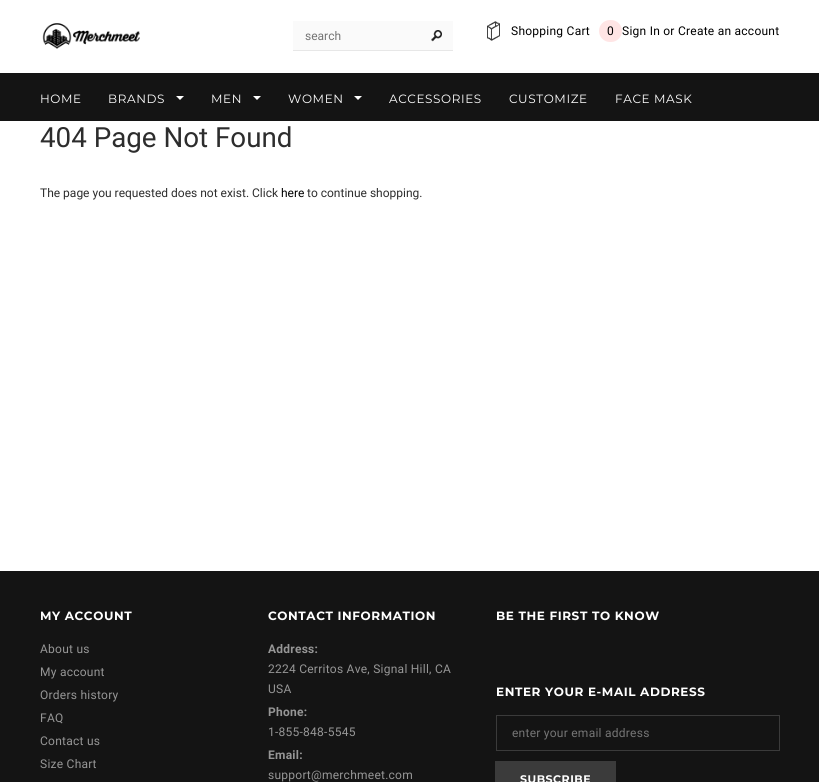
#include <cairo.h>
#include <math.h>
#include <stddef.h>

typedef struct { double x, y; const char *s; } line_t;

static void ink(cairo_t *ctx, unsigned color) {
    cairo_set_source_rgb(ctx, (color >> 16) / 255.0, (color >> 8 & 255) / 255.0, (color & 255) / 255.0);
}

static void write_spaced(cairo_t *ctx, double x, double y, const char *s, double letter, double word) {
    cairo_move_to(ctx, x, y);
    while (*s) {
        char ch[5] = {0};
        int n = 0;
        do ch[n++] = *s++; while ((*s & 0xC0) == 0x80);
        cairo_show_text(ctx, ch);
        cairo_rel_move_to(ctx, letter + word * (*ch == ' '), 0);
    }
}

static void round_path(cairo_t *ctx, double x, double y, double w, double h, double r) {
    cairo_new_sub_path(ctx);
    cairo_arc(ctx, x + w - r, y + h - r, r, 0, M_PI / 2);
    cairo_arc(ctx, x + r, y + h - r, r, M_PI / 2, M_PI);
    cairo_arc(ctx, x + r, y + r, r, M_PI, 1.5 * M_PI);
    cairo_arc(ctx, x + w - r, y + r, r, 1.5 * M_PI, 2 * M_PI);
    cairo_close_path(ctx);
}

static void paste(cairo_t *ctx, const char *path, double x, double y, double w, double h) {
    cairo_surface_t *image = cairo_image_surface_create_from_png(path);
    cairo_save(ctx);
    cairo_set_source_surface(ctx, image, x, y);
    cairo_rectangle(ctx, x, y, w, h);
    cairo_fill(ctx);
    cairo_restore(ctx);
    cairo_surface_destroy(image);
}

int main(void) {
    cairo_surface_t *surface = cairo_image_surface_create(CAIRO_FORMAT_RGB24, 819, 782);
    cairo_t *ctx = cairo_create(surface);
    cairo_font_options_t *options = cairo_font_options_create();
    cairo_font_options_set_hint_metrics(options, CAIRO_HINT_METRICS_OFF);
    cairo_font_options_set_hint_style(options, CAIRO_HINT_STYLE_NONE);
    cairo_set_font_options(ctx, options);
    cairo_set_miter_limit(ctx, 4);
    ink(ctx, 0xFFFFFF);
    cairo_paint(ctx);
    paste(ctx, "media/1.png", 42, 23, 98, 26);
    ink(ctx, 0xFAFAFA);
    cairo_rectangle(ctx, 293, 21, 160, 29);
    cairo_fill(ctx);
    ink(ctx, 0xE7E7E7);
    cairo_rectangle(ctx, 293, 50, 160, 1);
    cairo_fill(ctx);
    cairo_select_font_face(ctx, "Roboto", CAIRO_FONT_SLANT_NORMAL, CAIRO_FONT_WEIGHT_NORMAL);
    cairo_set_font_size(ctx, 12);
    ink(ctx, 0x757575);
    cairo_move_to(ctx, 305, 40);
    cairo_show_text(ctx, "search");
    paste(ctx, "media/2.png", 431, 30, 11, 12);
    paste(ctx, "media/3.png", 487, 21, 13, 20);
    ink(ctx, 0x000000);
    write_spaced(ctx, 511, 35, "Shopping Cart", 0.25, 0);
    ink(ctx, 0xFFE5E5);
    round_path(ctx, 599, 20, 23, 22, 11);
    cairo_fill(ctx);
    ink(ctx, 0x000000);
    write_spaced(ctx, 607, 35, "0", 0.25, 0);
    write_spaced(ctx, 622, 35, "Sign In or Create an account", 0.25, 0);
    ink(ctx, 0x141414);
    cairo_rectangle(ctx, 0, 73, 819, 48);
    cairo_fill(ctx);
    cairo_select_font_face(ctx, "Montserrat", CAIRO_FONT_SLANT_NORMAL, CAIRO_FONT_WEIGHT_NORMAL);
    ink(ctx, 0xFFFFFF);
    write_spaced(ctx, 40, 103, "HOME", 0.6, 0);
    write_spaced(ctx, 108, 103, "BRANDS", 0.6, 0);
    cairo_new_path(ctx);
    cairo_move_to(ctx, 176, 96);
    cairo_line_to(ctx, 184, 96);
    cairo_line_to(ctx, 180, 100);
    cairo_close_path(ctx);
    cairo_fill(ctx);
    write_spaced(ctx, 211, 103, "MEN", 0.6, 0);
    cairo_new_path(ctx);
    cairo_move_to(ctx, 253, 96);
    cairo_line_to(ctx, 261, 96);
    cairo_line_to(ctx, 257, 100);
    cairo_close_path(ctx);
    cairo_fill(ctx);
    write_spaced(ctx, 288, 103, "WOMEN", 0.6, 0);
    cairo_new_path(ctx);
    cairo_move_to(ctx, 354, 96);
    cairo_line_to(ctx, 362, 96);
    cairo_line_to(ctx, 358, 100);
    cairo_close_path(ctx);
    cairo_fill(ctx);
    {
        static const line_t items[] = {
            {389, 103, "ACCESSORIES"},
            {509, 103, "CUSTOMIZE"},
            {615, 103, "FACE MASK"},
        };
        for (size_t i = 0; i < sizeof items / sizeof *items; i++) {
            write_spaced(ctx, items[i].x, items[i].y, items[i].s, 0.6, 0);
        }
    }
    cairo_select_font_face(ctx, "Roboto", CAIRO_FONT_SLANT_NORMAL, CAIRO_FONT_WEIGHT_NORMAL);
    cairo_set_font_size(ctx, 27.75);
    ink(ctx, 0x2D2D2D);
    cairo_move_to(ctx, 40, 147);
    cairo_show_text(ctx, "404 Page Not Found");
    cairo_set_font_size(ctx, 12);
    cairo_move_to(ctx, 40, 197);
    cairo_show_text(ctx, "The page you requested does not exist. Click");
    ink(ctx, 0x000000);
    cairo_move_to(ctx, 281, 197);
    cairo_show_text(ctx, "here");
    ink(ctx, 0x2D2D2D);
    cairo_move_to(ctx, 307, 197);
    cairo_show_text(ctx, "to continue shopping.");
    ink(ctx, 0x141414);
    cairo_rectangle(ctx, 0, 571, 819, 211);
    cairo_fill(ctx);
    cairo_select_font_face(ctx, "Montserrat", CAIRO_FONT_SLANT_NORMAL, CAIRO_FONT_WEIGHT_BOLD);
    ink(ctx, 0xFFFFFF);
    write_spaced(ctx, 40, 620, "MY ACCOUNT", 0.6, 0);
    cairo_select_font_face(ctx, "Roboto", CAIRO_FONT_SLANT_NORMAL, CAIRO_FONT_WEIGHT_NORMAL);
    ink(ctx, 0x969696);
    {
        static const line_t items[] = {
            {40, 653, "About us"},
            {40, 676, "My account"},
            {40, 699, "Orders history"},
            {40, 722, "FAQ"},
            {40, 745, "Contact us"},
            {40, 768, "Size Chart"},
        };
        for (size_t i = 0; i < sizeof items / sizeof *items; i++) {
            write_spaced(ctx, items[i].x, items[i].y, items[i].s, 0.25, 0);
        }
    }
    cairo_select_font_face(ctx, "Montserrat", CAIRO_FONT_SLANT_NORMAL, CAIRO_FONT_WEIGHT_BOLD);
    ink(ctx, 0xFFFFFF);
    write_spaced(ctx, 268, 620, "CONTACT INFORMATION", 0.6, 0);
    cairo_select_font_face(ctx, "Roboto", CAIRO_FONT_SLANT_NORMAL, CAIRO_FONT_WEIGHT_BOLD);
    ink(ctx, 0x969696);
    write_spaced(ctx, 268, 653, "Address:", 0.25, 0);
    cairo_select_font_face(ctx, "Roboto", CAIRO_FONT_SLANT_NORMAL, CAIRO_FONT_WEIGHT_NORMAL);
    write_spaced(ctx, 268, 673, "2224 Cerritos Ave, Signal Hill, CA", 0.25, 0);
    write_spaced(ctx, 268, 693, "USA", 0.25, 0);
    cairo_select_font_face(ctx, "Roboto", CAIRO_FONT_SLANT_NORMAL, CAIRO_FONT_WEIGHT_BOLD);
    write_spaced(ctx, 268, 716, "Phone:", 0.25, 0);
    cairo_select_font_face(ctx, "Roboto", CAIRO_FONT_SLANT_NORMAL, CAIRO_FONT_WEIGHT_NORMAL);
    write_spaced(ctx, 268, 736, "1-855-848-5545", 0.25, 0);
    cairo_select_font_face(ctx, "Roboto", CAIRO_FONT_SLANT_NORMAL, CAIRO_FONT_WEIGHT_BOLD);
    write_spaced(ctx, 268, 759, "Email:", 0.25, 0);
    cairo_select_font_face(ctx, "Roboto", CAIRO_FONT_SLANT_NORMAL, CAIRO_FONT_WEIGHT_NORMAL);
    write_spaced(ctx, 268, 779, "support@merchmeet.com", 0.25, 0);
    cairo_select_font_face(ctx, "Montserrat", CAIRO_FONT_SLANT_NORMAL, CAIRO_FONT_WEIGHT_BOLD);
    ink(ctx, 0xFFFFFF);
    write_spaced(ctx, 496, 620, "BE THE FIRST TO KNOW", 0.6, 0);
    write_spaced(ctx, 496, 696, "ENTER YOUR E-MAIL ADDRESS", 0.6, 0);
    cairo_rectangle(ctx, 496.5, 715.5, 283, 35);
    ink(ctx, 0x3B3B3B);
    cairo_set_line_width(ctx, 1);
    cairo_stroke(ctx);
    cairo_select_font_face(ctx, "Roboto", CAIRO_FONT_SLANT_NORMAL, CAIRO_FONT_WEIGHT_NORMAL);
    ink(ctx, 0x757575);
    write_spaced(ctx, 512, 737, "enter your email address", 0.25, 0);
    ink(ctx, 0x3B3B3B);
    cairo_rectangle(ctx, 495, 761, 121, 21);
    cairo_fill(ctx);
    cairo_select_font_face(ctx, "Montserrat", CAIRO_FONT_SLANT_NORMAL, CAIRO_FONT_WEIGHT_BOLD);
    cairo_set_font_size(ctx, 11);
    ink(ctx, 0xFFFFFF);
    write_spaced(ctx, 520, 783, "SUBSCRIBE", 0.5, 0);
    cairo_surface_write_to_png(surface, "image.png");
    cairo_font_options_destroy(options);
    cairo_destroy(ctx);
    cairo_surface_destroy(surface);
    return 0;
}
